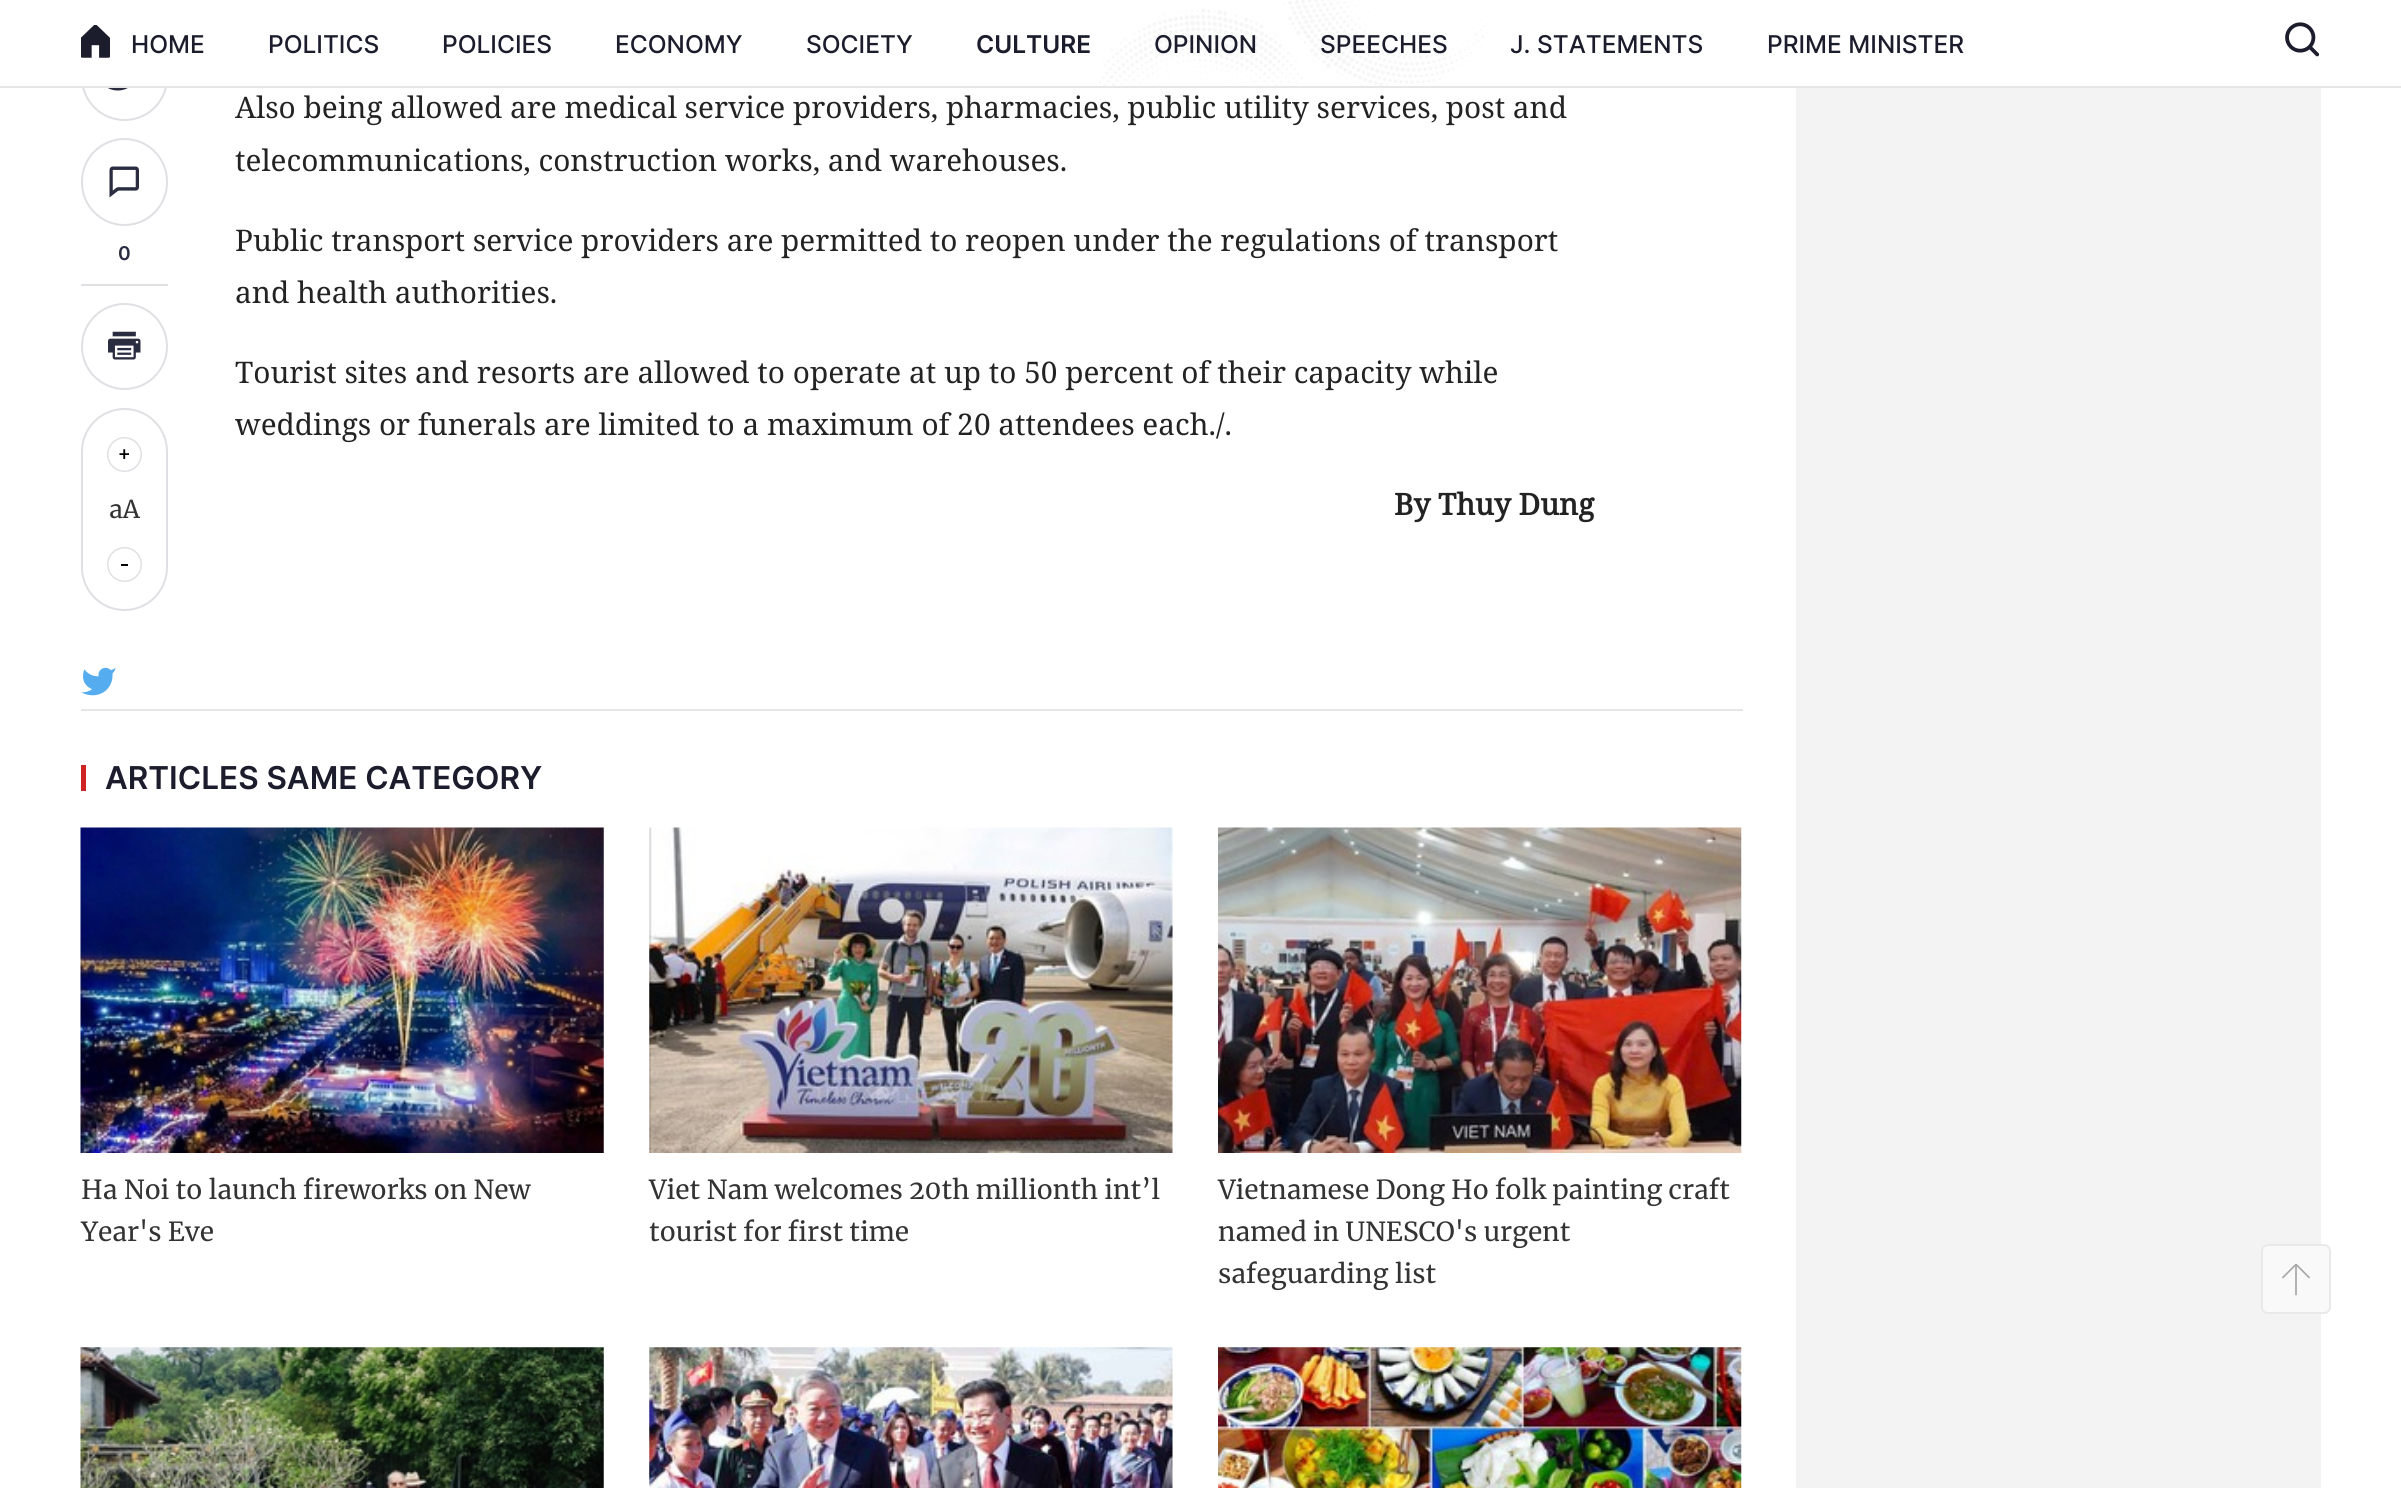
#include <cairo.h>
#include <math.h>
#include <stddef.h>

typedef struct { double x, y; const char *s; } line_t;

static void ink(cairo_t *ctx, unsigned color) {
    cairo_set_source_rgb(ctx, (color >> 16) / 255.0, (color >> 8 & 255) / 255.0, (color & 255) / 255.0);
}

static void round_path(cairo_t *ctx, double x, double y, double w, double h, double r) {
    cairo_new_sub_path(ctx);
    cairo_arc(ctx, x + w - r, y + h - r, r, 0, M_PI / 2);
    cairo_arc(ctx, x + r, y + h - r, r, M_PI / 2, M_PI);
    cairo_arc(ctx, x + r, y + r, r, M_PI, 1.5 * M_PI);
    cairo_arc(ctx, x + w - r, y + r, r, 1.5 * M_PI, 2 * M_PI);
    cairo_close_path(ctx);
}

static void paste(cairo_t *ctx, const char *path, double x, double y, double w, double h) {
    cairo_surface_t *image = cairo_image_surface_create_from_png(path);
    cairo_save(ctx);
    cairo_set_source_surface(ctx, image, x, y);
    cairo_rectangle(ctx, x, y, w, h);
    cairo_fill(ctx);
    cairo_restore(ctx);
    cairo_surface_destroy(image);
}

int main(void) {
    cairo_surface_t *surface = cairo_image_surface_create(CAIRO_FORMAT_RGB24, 2401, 1488);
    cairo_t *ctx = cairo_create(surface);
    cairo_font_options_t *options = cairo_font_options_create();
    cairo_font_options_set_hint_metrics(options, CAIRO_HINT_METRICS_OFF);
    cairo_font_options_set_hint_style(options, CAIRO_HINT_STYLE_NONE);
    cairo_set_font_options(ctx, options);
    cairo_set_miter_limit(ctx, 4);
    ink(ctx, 0xFFFFFF);
    cairo_paint(ctx);
    round_path(ctx, 82, 34, 85, 86, 42.5);
    ink(ctx, 0xDFE0E3);
    cairo_stroke(ctx);
    ink(ctx, 0xFFFFFF);
    cairo_rectangle(ctx, 81, 33, 87, 53);
    cairo_fill(ctx);
    ink(ctx, 0xE6E6E6);
    cairo_rectangle(ctx, 0, 86, 2401, 2);
    cairo_fill(ctx);
    paste(ctx, "media/1.png", 1099, 0, 388, 86);
    paste(ctx, "media/2.png", 81, 25, 29, 33);
    cairo_select_font_face(ctx, "Inter Medium", CAIRO_FONT_SLANT_NORMAL, CAIRO_FONT_WEIGHT_NORMAL);
    cairo_set_font_size(ctx, 24.5);
    ink(ctx, 0x1B1D2D);
    {
        static const line_t items[] = {
            {131, 53, "HOME"},
            {268, 53, "POLITICS"},
            {442, 53, "POLICIES"},
            {615, 53, "ECONOMY"},
            {806, 53, "SOCIETY"},
        };
        for (size_t i = 0; i < sizeof items / sizeof *items; i++) {
            cairo_move_to(ctx, items[i].x, items[i].y);
            cairo_show_text(ctx, items[i].s);
        }
    }
    cairo_select_font_face(ctx, "Inter SemiBold", CAIRO_FONT_SLANT_NORMAL, CAIRO_FONT_WEIGHT_NORMAL);
    cairo_move_to(ctx, 976, 53);
    cairo_show_text(ctx, "CULTURE");
    cairo_select_font_face(ctx, "Inter Medium", CAIRO_FONT_SLANT_NORMAL, CAIRO_FONT_WEIGHT_NORMAL);
    {
        static const line_t items[] = {
            {1154, 53, "OPINION"},
            {1320, 53, "SPEECHES"},
            {1510, 53, "J. STATEMENTS"},
            {1767, 53, "PRIME MINISTER"},
        };
        for (size_t i = 0; i < sizeof items / sizeof *items; i++) {
            cairo_move_to(ctx, items[i].x, items[i].y);
            cairo_show_text(ctx, items[i].s);
        }
    }
    paste(ctx, "media/3.png", 2285, 22, 35, 35);
    paste(ctx, "media/4.png", 108, 88, 20, 3);
    round_path(ctx, 82, 139, 85, 86, 42.5);
    ink(ctx, 0xDFE0E3);
    cairo_stroke(ctx);
    paste(ctx, "media/5.png", 109, 166, 30, 32);
    cairo_rectangle(ctx, 81, 284, 87, 2);
    cairo_fill(ctx);
    cairo_select_font_face(ctx, "Inter SemiBold", CAIRO_FONT_SLANT_NORMAL, CAIRO_FONT_WEIGHT_NORMAL);
    cairo_set_font_size(ctx, 19);
    ink(ctx, 0x2A2D40);
    cairo_move_to(ctx, 118, 260);
    cairo_show_text(ctx, "0");
    cairo_new_path(ctx);
    cairo_arc(ctx, 124.5, 346.5, 42.5, 0, 2 * M_PI);
    ink(ctx, 0xDFE0E3);
    cairo_stroke(ctx);
    paste(ctx, "media/6.png", 108, 331, 33, 29);
    round_path(ctx, 82, 409, 85, 201, 42.5);
    cairo_stroke(ctx);
    paste(ctx, "media/7.png", 107, 437, 35, 35);
    cairo_select_font_face(ctx, "Merriweather", CAIRO_FONT_SLANT_NORMAL, CAIRO_FONT_WEIGHT_NORMAL);
    cairo_set_font_size(ctx, 24.5);
    ink(ctx, 0x333333);
    cairo_move_to(ctx, 109, 518);
    cairo_show_text(ctx, "aA");
    ink(ctx, 0x000000);
    cairo_rectangle(ctx, 121, 564, 7, 2);
    cairo_fill(ctx);
    cairo_arc(ctx, 124.5, 564.5, 16.75, 0, 2 * M_PI);
    ink(ctx, 0xDFE0E3);
    cairo_set_line_width(ctx, 1.5);
    cairo_stroke(ctx);
    cairo_select_font_face(ctx, "Noto Serif", CAIRO_FONT_SLANT_NORMAL, CAIRO_FONT_WEIGHT_NORMAL);
    cairo_set_font_size(ctx, 29.75);
    ink(ctx, 0x232323);
    {
        static const line_t items[] = {
            {235, 118, "Also being allowed are medical service providers, pharmacies, public utility services, post and"},
            {235, 171, "telecommunications, construction works, and warehouses."},
            {235, 251, "Public transport service providers are permitted to reopen under the regulations of transport"},
            {235, 303, "and health authorities."},
            {235, 383, "Tourist sites and resorts are allowed to operate at up to 50 percent of their capacity while"},
            {235, 435, "weddings or funerals are limited to a maximum of 20 attendees each./."},
        };
        for (size_t i = 0; i < sizeof items / sizeof *items; i++) {
            cairo_move_to(ctx, items[i].x, items[i].y);
            cairo_show_text(ctx, items[i].s);
        }
    }
    cairo_select_font_face(ctx, "Noto Serif", CAIRO_FONT_SLANT_NORMAL, CAIRO_FONT_WEIGHT_BOLD);
    cairo_move_to(ctx, 1394, 515);
    cairo_show_text(ctx, "By Thuy Dung");
    paste(ctx, "media/8.png", 81, 667, 35, 29);
    ink(ctx, 0xE6E6E6);
    cairo_rectangle(ctx, 81, 709, 1662, 2);
    cairo_fill(ctx);
    ink(ctx, 0xCE2424);
    cairo_rectangle(ctx, 81, 765, 5, 26);
    cairo_fill(ctx);
    cairo_select_font_face(ctx, "Inter SemiBold", CAIRO_FONT_SLANT_NORMAL, CAIRO_FONT_WEIGHT_NORMAL);
    cairo_set_font_size(ctx, 31.5);
    ink(ctx, 0x1B1D2D);
    cairo_move_to(ctx, 105, 789);
    cairo_show_text(ctx, "ARTICLES SAME CATEGORY");
    paste(ctx, "media/9.png", 80, 827, 524, 326);
    cairo_select_font_face(ctx, "Merriweather", CAIRO_FONT_SLANT_NORMAL, CAIRO_FONT_WEIGHT_NORMAL);
    cairo_set_font_size(ctx, 26.25);
    ink(ctx, 0x333333);
    cairo_move_to(ctx, 81, 1199);
    cairo_show_text(ctx, "Ha Noi to launch fireworks on New");
    cairo_move_to(ctx, 81, 1241);
    cairo_show_text(ctx, "Year's Eve");
    paste(ctx, "media/10.png", 649, 827, 524, 326);
    cairo_move_to(ctx, 649, 1199);
    cairo_show_text(ctx, "Viet Nam welcomes 20th millionth int’l");
    cairo_move_to(ctx, 649, 1241);
    cairo_show_text(ctx, "tourist for first time");
    paste(ctx, "media/11.png", 1218, 827, 524, 326);
    {
        static const line_t items[] = {
            {1218, 1199, "Vietnamese Dong Ho folk painting craft"},
            {1218, 1241, "named in UNESCO's urgent"},
            {1218, 1283, "safeguarding list"},
        };
        for (size_t i = 0; i < sizeof items / sizeof *items; i++) {
            cairo_move_to(ctx, items[i].x, items[i].y);
            cairo_show_text(ctx, items[i].s);
        }
    }
    paste(ctx, "media/12.png", 80, 1347, 524, 141);
    paste(ctx, "media/13.png", 649, 1347, 524, 141);
    paste(ctx, "media/14.png", 1218, 1347, 524, 141);
    ink(ctx, 0xF3F3F3);
    cairo_rectangle(ctx, 1796, 88, 525, 1400);
    cairo_fill(ctx);
    ink(ctx, 0xF9F9F9);
    round_path(ctx, 2262, 1245, 68, 68, 6);
    cairo_fill_preserve(ctx);
    ink(ctx, 0xE9E9E9);
    cairo_set_line_width(ctx, 2);
    cairo_stroke(ctx);
    paste(ctx, "media/15.png", 2282, 1264, 28, 32);
    cairo_surface_write_to_png(surface, "image.png");
    cairo_font_options_destroy(options);
    cairo_destroy(ctx);
    cairo_surface_destroy(surface);
    return 0;
}
